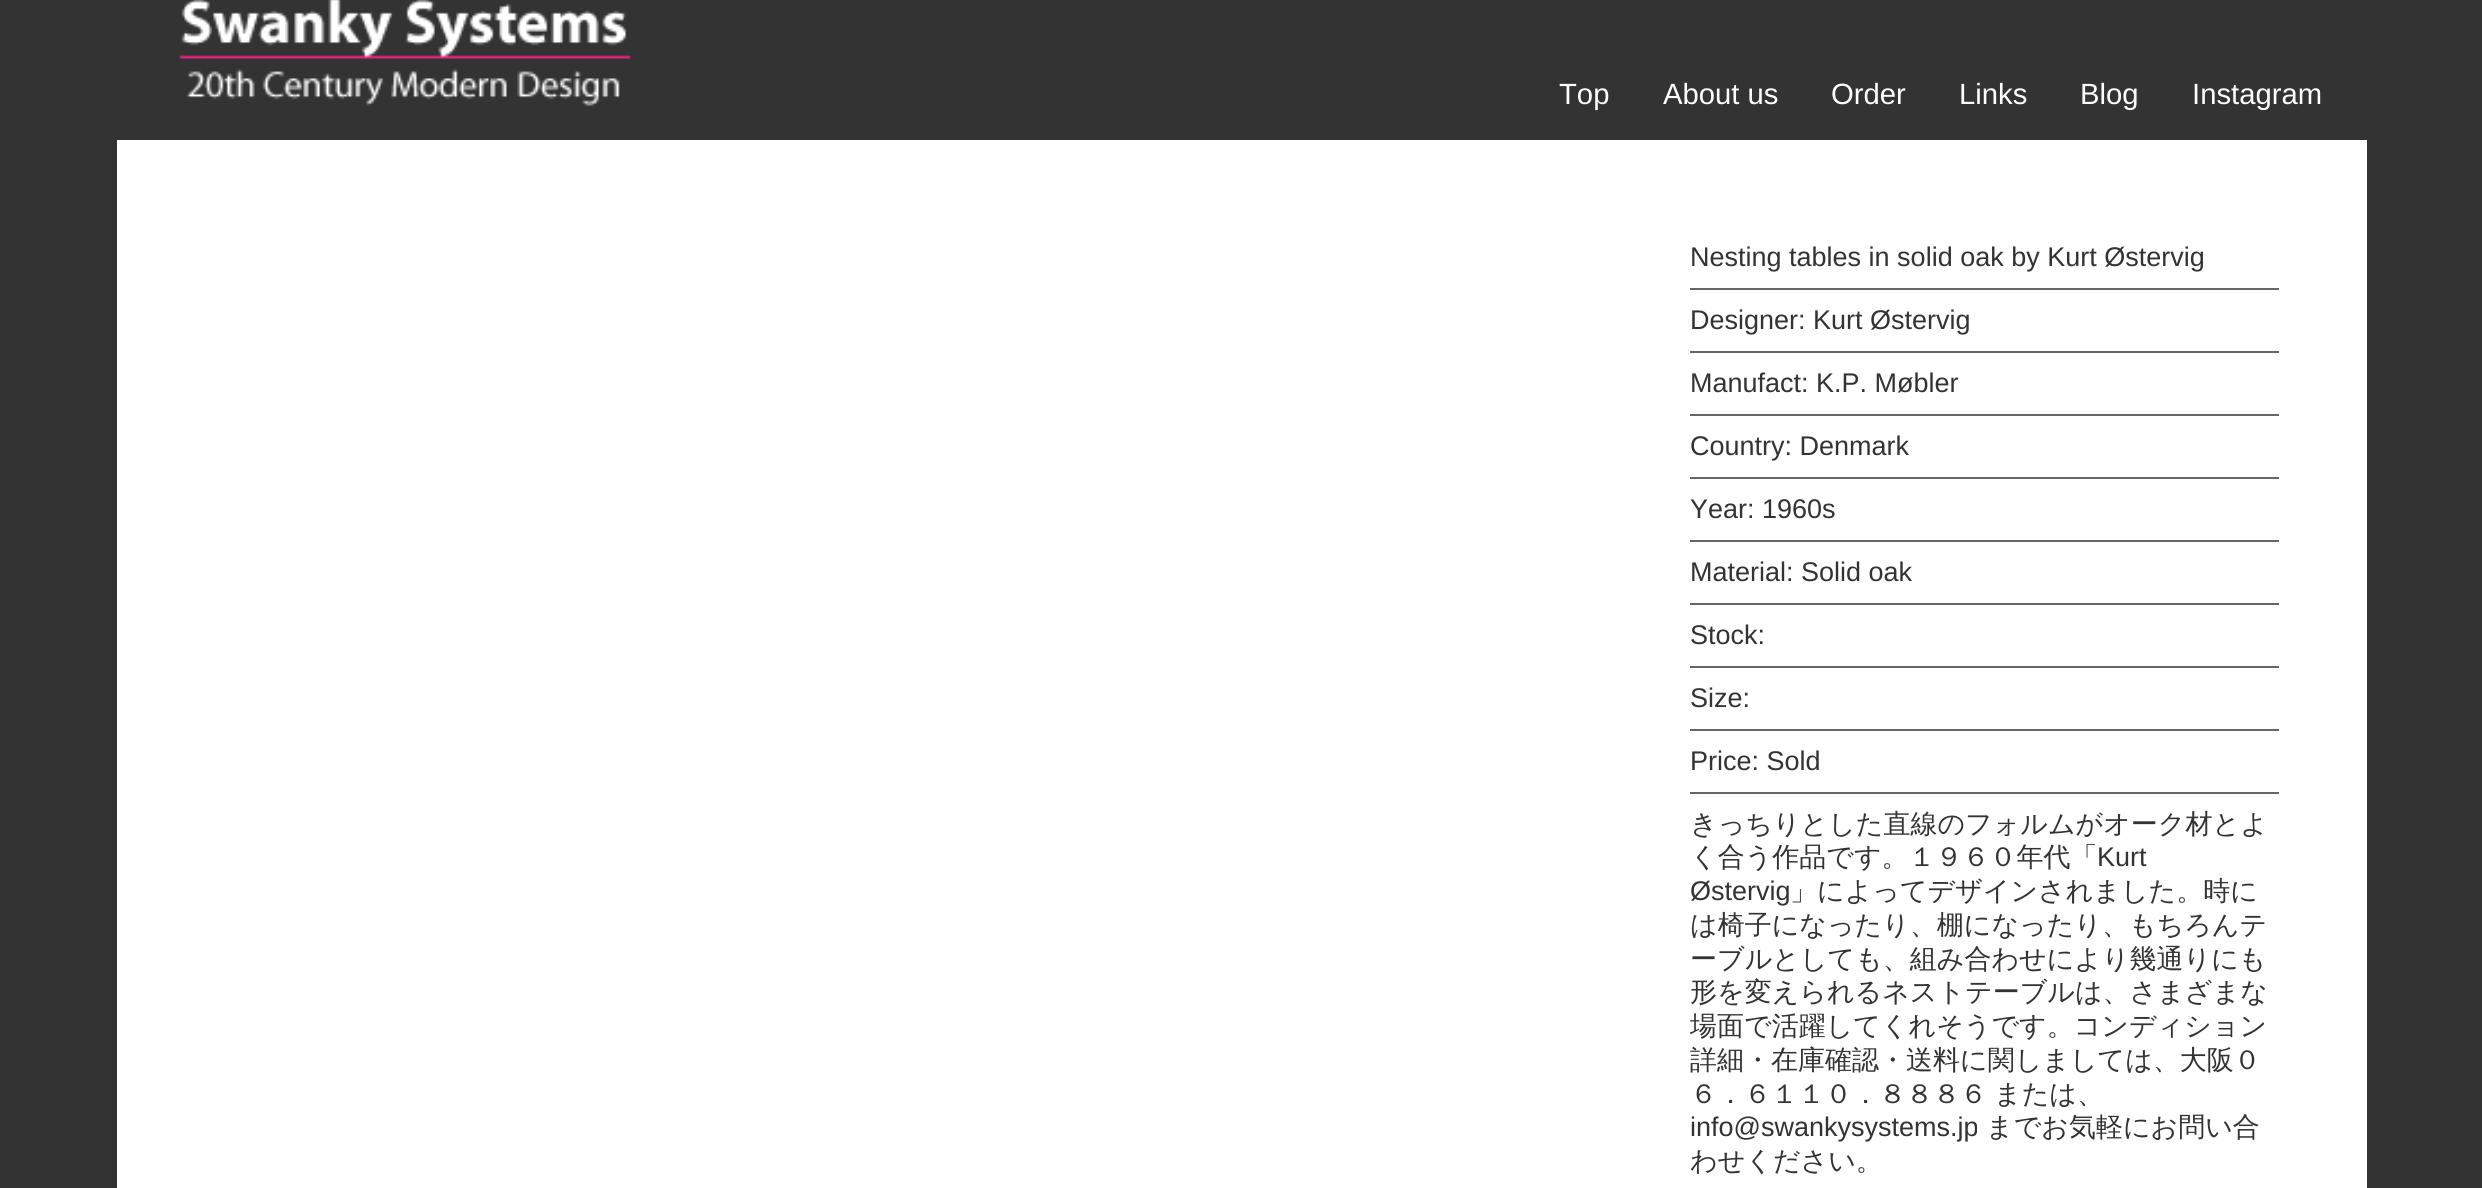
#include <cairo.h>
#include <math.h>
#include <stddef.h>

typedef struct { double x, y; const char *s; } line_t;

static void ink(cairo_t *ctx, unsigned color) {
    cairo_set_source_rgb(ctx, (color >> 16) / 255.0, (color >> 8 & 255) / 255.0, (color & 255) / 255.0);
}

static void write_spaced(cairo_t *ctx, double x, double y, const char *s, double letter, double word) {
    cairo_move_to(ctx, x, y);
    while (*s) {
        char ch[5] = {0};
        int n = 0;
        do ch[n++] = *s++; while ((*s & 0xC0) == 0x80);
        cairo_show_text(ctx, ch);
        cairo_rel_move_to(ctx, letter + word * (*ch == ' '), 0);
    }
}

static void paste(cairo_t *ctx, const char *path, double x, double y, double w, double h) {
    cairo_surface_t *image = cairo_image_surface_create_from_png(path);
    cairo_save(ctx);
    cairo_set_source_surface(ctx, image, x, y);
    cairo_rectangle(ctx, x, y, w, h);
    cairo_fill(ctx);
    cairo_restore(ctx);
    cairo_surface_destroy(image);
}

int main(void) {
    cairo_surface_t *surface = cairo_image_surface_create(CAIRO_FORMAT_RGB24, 2482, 1188);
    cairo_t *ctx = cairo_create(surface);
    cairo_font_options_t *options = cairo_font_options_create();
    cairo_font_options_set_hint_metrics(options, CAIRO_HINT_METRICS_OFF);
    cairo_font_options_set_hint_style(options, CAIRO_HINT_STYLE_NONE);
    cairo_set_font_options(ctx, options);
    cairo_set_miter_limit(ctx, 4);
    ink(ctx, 0x333333);
    cairo_paint(ctx);
    paste(ctx, "media/1.png", 179, 0, 452, 107);
    cairo_select_font_face(ctx, "Liberation Sans", CAIRO_FONT_SLANT_NORMAL, CAIRO_FONT_WEIGHT_NORMAL);
    cairo_set_font_size(ctx, 29.25);
    ink(ctx, 0xFFFFFF);
    {
        static const line_t items[] = {
            {1559, 104, "Top"},
            {1663, 104, "About us"},
            {1831, 104, "Order"},
            {1959, 104, "Links"},
            {2080, 104, "Blog"},
            {2192, 104, "Instagram"},
        };
        for (size_t i = 0; i < sizeof items / sizeof *items; i++) {
            cairo_move_to(ctx, items[i].x, items[i].y);
            cairo_show_text(ctx, items[i].s);
        }
    }
    cairo_rectangle(ctx, 117, 140, 2250, 1048);
    cairo_fill(ctx);
    ink(ctx, 0x666666);
    cairo_rectangle(ctx, 1690, 288, 589, 2);
    cairo_fill(ctx);
    cairo_set_font_size(ctx, 27);
    ink(ctx, 0x333333);
    cairo_move_to(ctx, 1690, 266);
    cairo_show_text(ctx, "Nesting tables in solid oak by Kurt Østervig");
    ink(ctx, 0x666666);
    cairo_rectangle(ctx, 1690, 351, 589, 2);
    cairo_fill(ctx);
    ink(ctx, 0x333333);
    cairo_move_to(ctx, 1690, 329);
    cairo_show_text(ctx, "Designer: Kurt Østervig");
    ink(ctx, 0x666666);
    cairo_rectangle(ctx, 1690, 414, 589, 2);
    cairo_fill(ctx);
    ink(ctx, 0x333333);
    cairo_move_to(ctx, 1690, 392);
    cairo_show_text(ctx, "Manufact: K.P. Møbler");
    ink(ctx, 0x666666);
    cairo_rectangle(ctx, 1690, 477, 589, 2);
    cairo_fill(ctx);
    ink(ctx, 0x333333);
    cairo_move_to(ctx, 1690, 455);
    cairo_show_text(ctx, "Country: Denmark");
    ink(ctx, 0x666666);
    cairo_rectangle(ctx, 1690, 540, 589, 2);
    cairo_fill(ctx);
    ink(ctx, 0x333333);
    cairo_move_to(ctx, 1690, 518);
    cairo_show_text(ctx, "Year: 1960s");
    ink(ctx, 0x666666);
    cairo_rectangle(ctx, 1690, 603, 589, 2);
    cairo_fill(ctx);
    ink(ctx, 0x333333);
    cairo_move_to(ctx, 1690, 581);
    cairo_show_text(ctx, "Material: Solid oak");
    ink(ctx, 0x666666);
    cairo_rectangle(ctx, 1690, 666, 589, 2);
    cairo_fill(ctx);
    ink(ctx, 0x333333);
    cairo_move_to(ctx, 1690, 644);
    cairo_show_text(ctx, "Stock:");
    ink(ctx, 0x666666);
    cairo_rectangle(ctx, 1690, 729, 589, 2);
    cairo_fill(ctx);
    ink(ctx, 0x333333);
    cairo_move_to(ctx, 1690, 707);
    cairo_show_text(ctx, "Size:");
    ink(ctx, 0x666666);
    cairo_rectangle(ctx, 1690, 792, 589, 2);
    cairo_fill(ctx);
    ink(ctx, 0x333333);
    cairo_move_to(ctx, 1690, 770);
    cairo_show_text(ctx, "Price: Sold");
    cairo_select_font_face(ctx, "WenQuanYi Zen Hei Medium", CAIRO_FONT_SLANT_NORMAL, CAIRO_FONT_WEIGHT_NORMAL);
    cairo_move_to(ctx, 1690, 833);
    cairo_show_text(ctx, "きっちりとした直線のフォルムがオーク材とよ");
    cairo_move_to(ctx, 1690, 866);
    cairo_show_text(ctx, "く合う作品です。１９６０年代「");
    cairo_select_font_face(ctx, "Liberation Sans", CAIRO_FONT_SLANT_NORMAL, CAIRO_FONT_WEIGHT_NORMAL);
    cairo_move_to(ctx, 2097, 866);
    cairo_show_text(ctx, "Kurt");
    cairo_move_to(ctx, 1690, 900);
    cairo_show_text(ctx, "Østervig");
    cairo_select_font_face(ctx, "WenQuanYi Zen Hei Medium", CAIRO_FONT_SLANT_NORMAL, CAIRO_FONT_WEIGHT_NORMAL);
    {
        static const line_t items[] = {
            {1790, 900, "」によってデザインされました。時に"},
            {1690, 934, "は椅子になったり、棚になったり、もちろんテ"},
            {1690, 968, "ーブルとしても、組み合わせにより幾通りにも"},
            {1690, 1001, "形を変えられるネストテーブルは、さまざまな"},
            {1690, 1035, "場面で活躍してくれそうです。コンディション"},
            {1690, 1069, "詳細・在庫確認・送料に関しましては、大阪０"},
        };
        for (size_t i = 0; i < sizeof items / sizeof *items; i++) {
            cairo_move_to(ctx, items[i].x, items[i].y);
            cairo_show_text(ctx, items[i].s);
        }
    }
    write_spaced(ctx, 1690, 1103, "６．６１１０．８８８６ または、", 0, -1);
    cairo_select_font_face(ctx, "Liberation Sans", CAIRO_FONT_SLANT_NORMAL, CAIRO_FONT_WEIGHT_NORMAL);
    cairo_move_to(ctx, 1690, 1136);
    cairo_show_text(ctx, "info@swankysystems.jp");
    cairo_select_font_face(ctx, "WenQuanYi Zen Hei Medium", CAIRO_FONT_SLANT_NORMAL, CAIRO_FONT_WEIGHT_NORMAL);
    cairo_move_to(ctx, 1986, 1136);
    cairo_show_text(ctx, "までお気軽にお問い合");
    cairo_move_to(ctx, 1690, 1170);
    cairo_show_text(ctx, "わせください。");
    cairo_surface_write_to_png(surface, "image.png");
    cairo_font_options_destroy(options);
    cairo_destroy(ctx);
    cairo_surface_destroy(surface);
    return 0;
}
